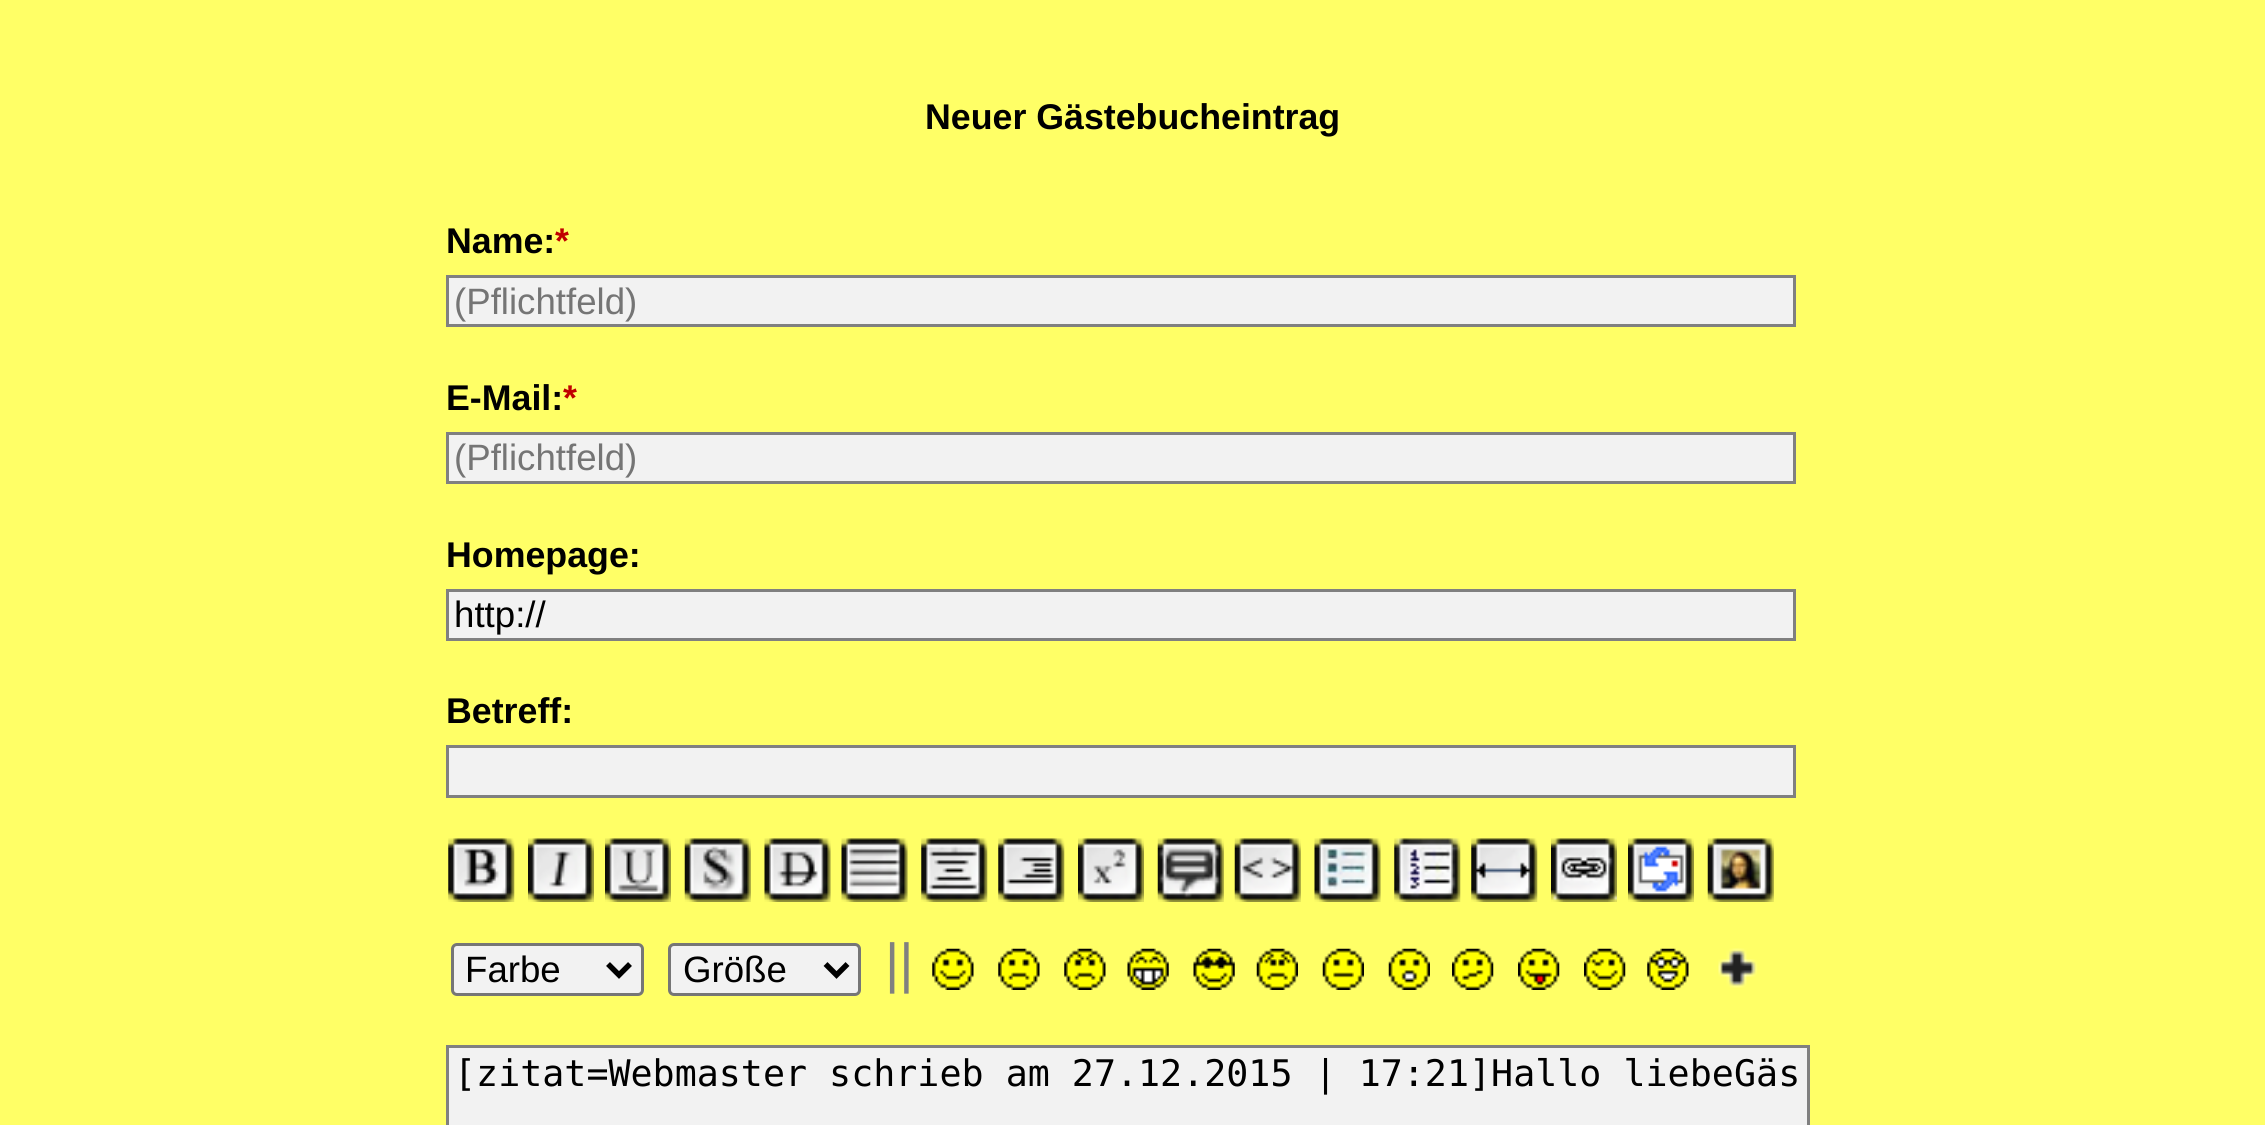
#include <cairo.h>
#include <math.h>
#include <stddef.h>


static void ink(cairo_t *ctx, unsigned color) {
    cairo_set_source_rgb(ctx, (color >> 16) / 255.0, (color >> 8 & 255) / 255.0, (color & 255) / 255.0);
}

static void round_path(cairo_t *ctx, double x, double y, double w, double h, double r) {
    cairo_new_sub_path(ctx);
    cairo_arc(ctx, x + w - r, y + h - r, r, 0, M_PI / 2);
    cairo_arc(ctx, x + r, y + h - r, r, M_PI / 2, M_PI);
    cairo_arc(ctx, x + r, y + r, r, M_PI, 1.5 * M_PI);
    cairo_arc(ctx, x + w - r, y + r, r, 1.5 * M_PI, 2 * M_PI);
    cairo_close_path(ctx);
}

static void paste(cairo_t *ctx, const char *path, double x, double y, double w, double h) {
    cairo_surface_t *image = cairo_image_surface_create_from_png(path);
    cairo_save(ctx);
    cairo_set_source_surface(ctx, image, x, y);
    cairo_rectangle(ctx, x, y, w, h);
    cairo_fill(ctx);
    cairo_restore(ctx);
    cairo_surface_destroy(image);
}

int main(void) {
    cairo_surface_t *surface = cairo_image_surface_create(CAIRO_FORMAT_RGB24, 2265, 1125);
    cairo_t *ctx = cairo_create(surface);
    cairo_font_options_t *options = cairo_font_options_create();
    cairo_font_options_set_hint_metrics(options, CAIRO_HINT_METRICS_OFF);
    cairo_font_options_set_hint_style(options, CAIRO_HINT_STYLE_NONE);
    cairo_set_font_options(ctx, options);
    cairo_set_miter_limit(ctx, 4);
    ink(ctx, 0xFFFF66);
    cairo_paint(ctx);
    cairo_select_font_face(ctx, "Liberation Sans", CAIRO_FONT_SLANT_NORMAL, CAIRO_FONT_WEIGHT_BOLD);
    cairo_set_font_size(ctx, 35.75);
    ink(ctx, 0x000000);
    cairo_move_to(ctx, 925, 129);
    cairo_show_text(ctx, "Neuer Gästebucheintrag");
    cairo_move_to(ctx, 446, 253);
    cairo_show_text(ctx, "Name:");
    ink(ctx, 0xC00000);
    cairo_move_to(ctx, 555, 253);
    cairo_show_text(ctx, "*");
    ink(ctx, 0xF2F2F2);
    cairo_rectangle(ctx, 447.5, 276.5, 1347, 49);
    cairo_fill_preserve(ctx);
    ink(ctx, 0x808080);
    cairo_set_line_width(ctx, 3);
    cairo_stroke(ctx);
    cairo_select_font_face(ctx, "Liberation Sans", CAIRO_FONT_SLANT_NORMAL, CAIRO_FONT_WEIGHT_NORMAL);
    cairo_set_font_size(ctx, 36.65);
    ink(ctx, 0x757575);
    cairo_move_to(ctx, 454, 314);
    cairo_show_text(ctx, "(Pflichtfeld)");
    cairo_select_font_face(ctx, "Liberation Sans", CAIRO_FONT_SLANT_NORMAL, CAIRO_FONT_WEIGHT_BOLD);
    cairo_set_font_size(ctx, 35.75);
    ink(ctx, 0x000000);
    cairo_move_to(ctx, 446, 410);
    cairo_show_text(ctx, "E-Mail:");
    ink(ctx, 0xC00000);
    cairo_move_to(ctx, 563, 410);
    cairo_show_text(ctx, "*");
    ink(ctx, 0xF2F2F2);
    cairo_rectangle(ctx, 447.5, 433.5, 1347, 49);
    cairo_fill_preserve(ctx);
    ink(ctx, 0x808080);
    cairo_stroke(ctx);
    cairo_select_font_face(ctx, "Liberation Sans", CAIRO_FONT_SLANT_NORMAL, CAIRO_FONT_WEIGHT_NORMAL);
    cairo_set_font_size(ctx, 36.65);
    ink(ctx, 0x757575);
    cairo_move_to(ctx, 454, 470);
    cairo_show_text(ctx, "(Pflichtfeld)");
    cairo_select_font_face(ctx, "Liberation Sans", CAIRO_FONT_SLANT_NORMAL, CAIRO_FONT_WEIGHT_BOLD);
    cairo_set_font_size(ctx, 35.75);
    ink(ctx, 0x000000);
    cairo_move_to(ctx, 446, 567);
    cairo_show_text(ctx, "Homepage:");
    ink(ctx, 0xF2F2F2);
    cairo_rectangle(ctx, 447.5, 590.5, 1347, 49);
    cairo_fill_preserve(ctx);
    ink(ctx, 0x808080);
    cairo_stroke(ctx);
    cairo_select_font_face(ctx, "Liberation Sans", CAIRO_FONT_SLANT_NORMAL, CAIRO_FONT_WEIGHT_NORMAL);
    cairo_set_font_size(ctx, 36.65);
    ink(ctx, 0x000000);
    cairo_move_to(ctx, 454, 627);
    cairo_show_text(ctx, "http://");
    cairo_select_font_face(ctx, "Liberation Sans", CAIRO_FONT_SLANT_NORMAL, CAIRO_FONT_WEIGHT_BOLD);
    cairo_set_font_size(ctx, 35.75);
    cairo_move_to(ctx, 446, 723);
    cairo_show_text(ctx, "Betreff:");
    ink(ctx, 0xF2F2F2);
    cairo_rectangle(ctx, 447.5, 746.5, 1347, 50);
    cairo_fill_preserve(ctx);
    ink(ctx, 0x808080);
    cairo_stroke(ctx);
    paste(ctx, "media/1.png", 448, 838, 67, 64);
    paste(ctx, "media/2.png", 528, 838, 66, 64);
    paste(ctx, "media/3.png", 605, 838, 66, 64);
    paste(ctx, "media/4.png", 684, 838, 67, 64);
    paste(ctx, "media/5.png", 764, 838, 67, 64);
    paste(ctx, "media/6.png", 841, 838, 67, 64);
    paste(ctx, "media/7.png", 921, 838, 67, 64);
    paste(ctx, "media/8.png", 998, 838, 67, 64);
    paste(ctx, "media/9.png", 1078, 838, 66, 64);
    paste(ctx, "media/10.png", 1157, 838, 67, 64);
    paste(ctx, "media/11.png", 1234, 838, 67, 64);
    paste(ctx, "media/12.png", 1314, 838, 67, 64);
    paste(ctx, "media/13.png", 1394, 838, 67, 64);
    paste(ctx, "media/14.png", 1471, 838, 67, 64);
    paste(ctx, "media/15.png", 1551, 838, 66, 64);
    paste(ctx, "media/16.png", 1628, 838, 66, 64);
    paste(ctx, "media/17.png", 1707, 838, 67, 64);
    ink(ctx, 0xF2F2F2);
    round_path(ctx, 452.5, 944.5, 190, 50, 4.5);
    cairo_fill_preserve(ctx);
    ink(ctx, 0x767676);
    cairo_stroke(ctx);
    cairo_new_path(ctx);
    cairo_move_to(ctx, 608, 964);
    cairo_line_to(ctx, 619, 975);
    cairo_line_to(ctx, 630, 964);
    ink(ctx, 0x000000);
    cairo_set_line_width(ctx, 5.5);
    cairo_stroke(ctx);
    cairo_select_font_face(ctx, "Liberation Sans", CAIRO_FONT_SLANT_NORMAL, CAIRO_FONT_WEIGHT_NORMAL);
    cairo_set_font_size(ctx, 36.65);
    cairo_move_to(ctx, 465, 982);
    cairo_show_text(ctx, "Farbe");
    ink(ctx, 0xF2F2F2);
    round_path(ctx, 669.5, 944.5, 190, 50, 4.5);
    cairo_fill_preserve(ctx);
    ink(ctx, 0x767676);
    cairo_set_line_width(ctx, 3);
    cairo_stroke(ctx);
    cairo_new_path(ctx);
    cairo_move_to(ctx, 825.5, 964);
    cairo_line_to(ctx, 836.5, 975);
    cairo_line_to(ctx, 847.5, 964);
    ink(ctx, 0x000000);
    cairo_set_line_width(ctx, 5.5);
    cairo_stroke(ctx);
    cairo_move_to(ctx, 683, 982);
    cairo_show_text(ctx, "Größe");
    cairo_set_font_size(ctx, 55);
    ink(ctx, 0x808080);
    cairo_move_to(ctx, 885, 982);
    cairo_show_text(ctx, "||");
    paste(ctx, "media/18.png", 932, 948, 42, 42);
    paste(ctx, "media/19.png", 998, 948, 42, 42);
    paste(ctx, "media/20.png", 1064, 948, 42, 42);
    paste(ctx, "media/21.png", 1127, 948, 42, 42);
    paste(ctx, "media/22.png", 1193, 948, 42, 42);
    paste(ctx, "media/23.png", 1256, 948, 42, 42);
    paste(ctx, "media/24.png", 1322, 948, 42, 42);
    paste(ctx, "media/25.png", 1388, 948, 42, 42);
    paste(ctx, "media/26.png", 1452, 948, 42, 42);
    paste(ctx, "media/27.png", 1518, 948, 42, 42);
    paste(ctx, "media/28.png", 1584, 948, 42, 42);
    paste(ctx, "media/29.png", 1647, 948, 42, 42);
    paste(ctx, "media/30.png", 1718, 948, 40, 40);
    ink(ctx, 0xF2F2F2);
    cairo_rectangle(ctx, 447.5, 1046.5, 1361, 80);
    cairo_fill_preserve(ctx);
    ink(ctx, 0x808080);
    cairo_set_line_width(ctx, 3);
    cairo_stroke(ctx);
    cairo_select_font_face(ctx, "DejaVu Sans Mono", CAIRO_FONT_SLANT_NORMAL, CAIRO_FONT_WEIGHT_NORMAL);
    cairo_set_font_size(ctx, 36.65);
    ink(ctx, 0x000000);
    cairo_move_to(ctx, 454, 1086);
    cairo_show_text(ctx, "[zitat=Webmaster schrieb am 27.12.2015 | 17:21]Hallo liebe");
    cairo_move_to(ctx, 1734, 1086);
    cairo_show_text(ctx, "Gäs");
    cairo_surface_write_to_png(surface, "image.png");
    cairo_font_options_destroy(options);
    cairo_destroy(ctx);
    cairo_surface_destroy(surface);
    return 0;
}
